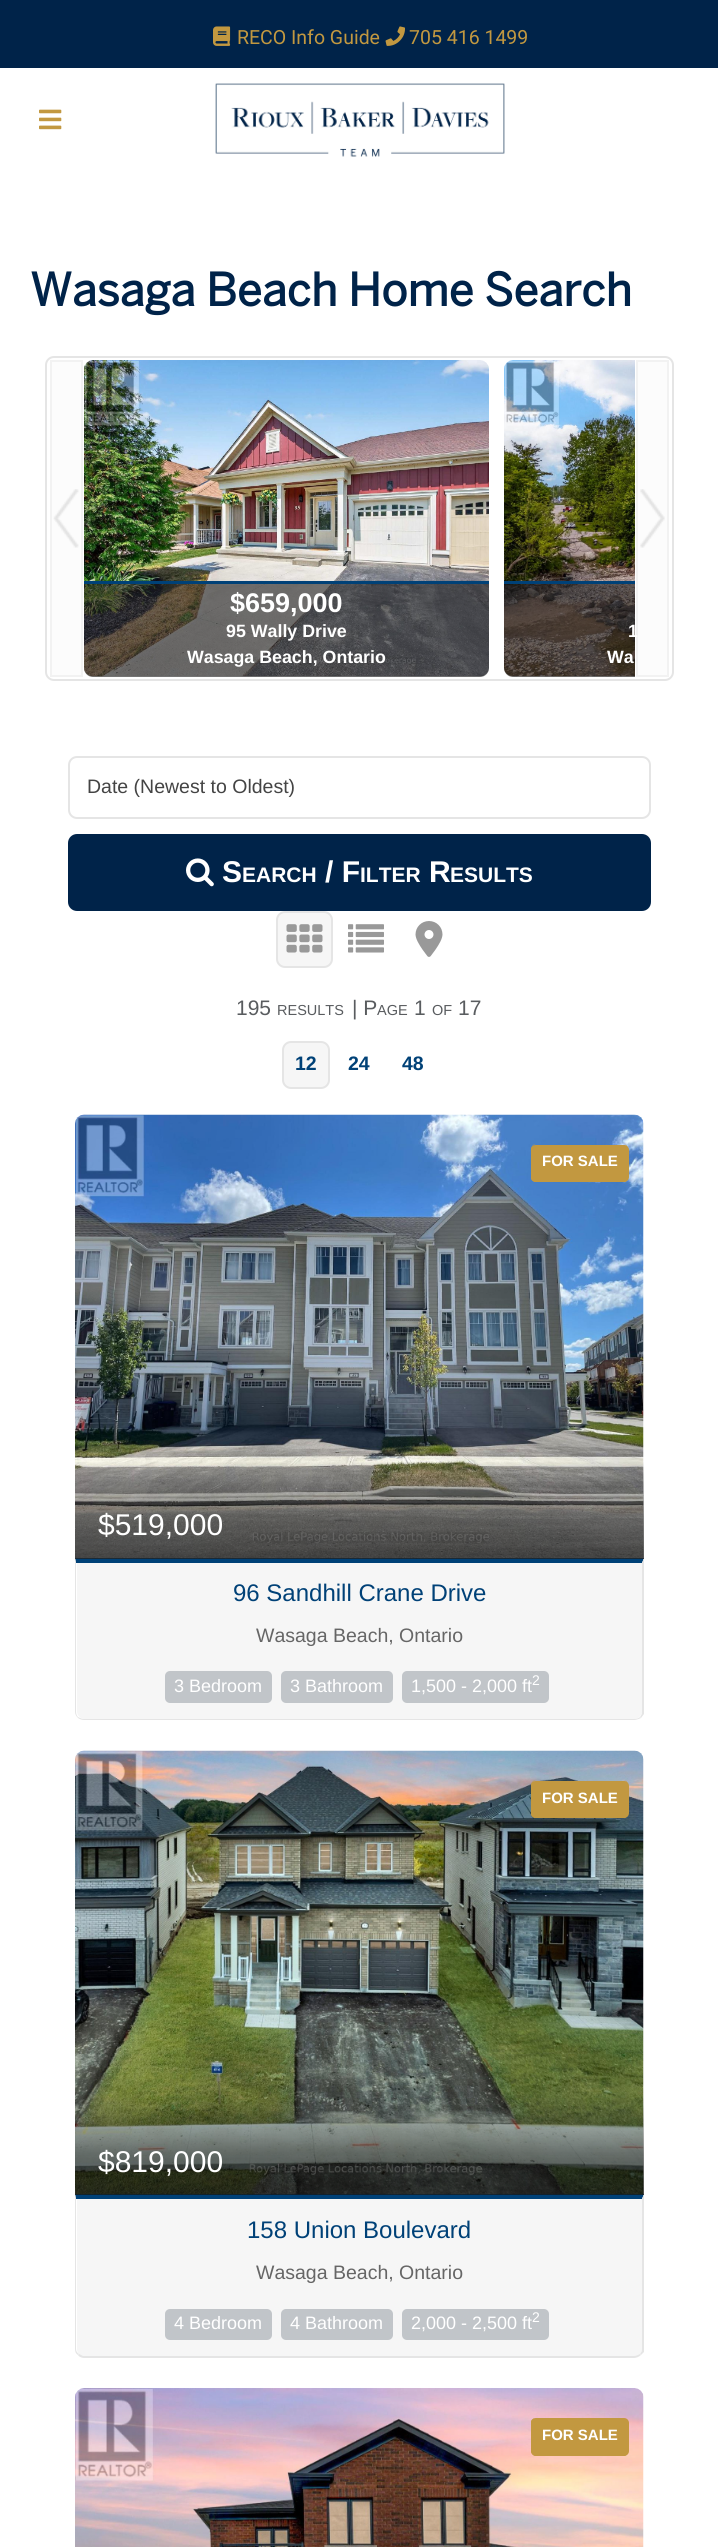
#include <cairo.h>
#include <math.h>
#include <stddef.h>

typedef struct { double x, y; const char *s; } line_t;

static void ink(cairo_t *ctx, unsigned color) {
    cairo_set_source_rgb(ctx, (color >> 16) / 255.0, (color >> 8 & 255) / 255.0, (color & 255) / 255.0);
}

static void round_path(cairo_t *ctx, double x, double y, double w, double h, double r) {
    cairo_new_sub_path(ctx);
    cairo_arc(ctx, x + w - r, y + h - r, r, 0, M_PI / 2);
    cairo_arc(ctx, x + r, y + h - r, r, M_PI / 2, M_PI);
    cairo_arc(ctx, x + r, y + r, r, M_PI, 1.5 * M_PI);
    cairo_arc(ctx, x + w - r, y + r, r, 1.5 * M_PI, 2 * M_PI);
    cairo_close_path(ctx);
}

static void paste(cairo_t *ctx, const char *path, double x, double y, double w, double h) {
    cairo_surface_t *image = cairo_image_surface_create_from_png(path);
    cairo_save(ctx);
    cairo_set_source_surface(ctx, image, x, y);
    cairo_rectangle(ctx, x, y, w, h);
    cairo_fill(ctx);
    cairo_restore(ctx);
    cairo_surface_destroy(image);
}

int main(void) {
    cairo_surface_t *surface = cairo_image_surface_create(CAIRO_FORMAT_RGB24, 718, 2547);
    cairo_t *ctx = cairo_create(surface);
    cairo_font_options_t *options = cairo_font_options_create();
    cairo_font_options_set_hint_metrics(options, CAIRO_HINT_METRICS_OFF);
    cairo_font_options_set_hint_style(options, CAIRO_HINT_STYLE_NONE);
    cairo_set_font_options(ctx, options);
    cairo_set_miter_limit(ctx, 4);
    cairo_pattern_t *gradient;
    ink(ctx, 0xFFFFFF);
    cairo_paint(ctx);
    ink(ctx, 0x002349);
    cairo_rectangle(ctx, 0, 0, 718, 68);
    cairo_fill(ctx);
    paste(ctx, "media/1.png", 213, 26, 18, 20);
    cairo_select_font_face(ctx, "Roboto", CAIRO_FONT_SLANT_NORMAL, CAIRO_FONT_WEIGHT_NORMAL);
    cairo_set_font_size(ctx, 19.5);
    ink(ctx, 0xC29840);
    cairo_move_to(ctx, 237, 44);
    cairo_show_text(ctx, "RECO Info Guide");
    paste(ctx, "media/2.png", 385, 26, 20, 20);
    cairo_move_to(ctx, 409, 44);
    cairo_show_text(ctx, "705 416 1499");
    paste(ctx, "media/3.png", 39, 109, 23, 21);
    paste(ctx, "media/4.png", 215, 83, 290, 74);
    cairo_select_font_face(ctx, "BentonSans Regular", CAIRO_FONT_SLANT_NORMAL, CAIRO_FONT_WEIGHT_BOLD);
    cairo_set_font_size(ctx, 45);
    ink(ctx, 0x002349);
    cairo_move_to(ctx, 30, 306);
    cairo_show_text(ctx, "Wasaga Beach Home Search");
    round_path(ctx, 46, 357, 627, 323, 8);
    ink(ctx, 0xE5E5E5);
    cairo_stroke(ctx);
    ink(ctx, 0xFCFCFC);
    cairo_rectangle(ctx, 52, 362, 29, 313);
    cairo_fill(ctx);
    paste(ctx, "media/5.png", 53, 489, 26, 59);
    cairo_rectangle(ctx, 51, 361, 31, 315);
    ink(ctx, 0xF2F2F2);
    cairo_stroke(ctx);
    ink(ctx, 0xFCFCFC);
    cairo_rectangle(ctx, 638, 362, 29, 313);
    cairo_fill(ctx);
    paste(ctx, "media/6.png", 640, 489, 25, 59);
    cairo_rectangle(ctx, 637, 361, 31, 315);
    ink(ctx, 0xF2F2F2);
    cairo_stroke(ctx);
    paste(ctx, "media/7.png", 84, 360, 405, 317);
    cairo_set_source_rgba(ctx, 0.118, 0.118, 0.118, 0.6);
    cairo_new_path(ctx);
    cairo_move_to(ctx, 84, 581);
    cairo_line_to(ctx, 489, 581);
    cairo_line_to(ctx, 489, 668);
    cairo_curve_to(ctx, 489, 673, 485, 677, 480, 677);
    cairo_line_to(ctx, 93, 677);
    cairo_curve_to(ctx, 88, 677, 84, 673, 84, 668);
    cairo_close_path(ctx);
    cairo_fill(ctx);
    ink(ctx, 0x004177);
    cairo_rectangle(ctx, 84, 581, 405, 3);
    cairo_fill(ctx);
    cairo_select_font_face(ctx, "Liberation Sans", CAIRO_FONT_SLANT_NORMAL, CAIRO_FONT_WEIGHT_BOLD);
    cairo_set_font_size(ctx, 27);
    ink(ctx, 0xFFFFFF);
    cairo_move_to(ctx, 230, 612);
    cairo_show_text(ctx, "$659,000");
    cairo_set_font_size(ctx, 17.8);
    cairo_move_to(ctx, 226, 637);
    cairo_show_text(ctx, "95 Wally Drive");
    cairo_move_to(ctx, 187, 663);
    cairo_show_text(ctx, "Wasaga Beach, Ontario");
    paste(ctx, "media/8.png", 504, 360, 131, 317);
    cairo_set_source_rgba(ctx, 0.118, 0.118, 0.118, 0.6);
    cairo_new_path(ctx);
    cairo_move_to(ctx, 504, 581);
    cairo_line_to(ctx, 635, 581);
    cairo_line_to(ctx, 635, 677);
    cairo_line_to(ctx, 513, 677);
    cairo_curve_to(ctx, 508, 677, 504, 673, 504, 668);
    cairo_close_path(ctx);
    cairo_fill(ctx);
    ink(ctx, 0x004177);
    cairo_rectangle(ctx, 504, 581, 131, 3);
    cairo_fill(ctx);
    ink(ctx, 0xFFFFFF);
    cairo_move_to(ctx, 628, 637);
    cairo_show_text(ctx, "1");
    cairo_move_to(ctx, 607, 663);
    cairo_show_text(ctx, "Wa");
    round_path(ctx, 69, 757, 581, 61, 8);
    ink(ctx, 0xE5E5E5);
    cairo_stroke(ctx);
    cairo_select_font_face(ctx, "Liberation Sans", CAIRO_FONT_SLANT_NORMAL, CAIRO_FONT_WEIGHT_NORMAL);
    cairo_set_font_size(ctx, 19.5);
    ink(ctx, 0x444444);
    cairo_move_to(ctx, 87, 793);
    cairo_show_text(ctx, "Date (Newest to Oldest)");
    ink(ctx, 0x002349);
    round_path(ctx, 69, 835, 581, 75, 8);
    cairo_fill_preserve(ctx);
    cairo_stroke(ctx);
    paste(ctx, "media/9.png", 186, 858, 28, 29);
    cairo_select_font_face(ctx, "Liberation Sans", CAIRO_FONT_SLANT_NORMAL, CAIRO_FONT_WEIGHT_BOLD);
    cairo_set_font_size(ctx, 30);
    ink(ctx, 0xFFFFFF);
    cairo_move_to(ctx, 222, 882);
    cairo_show_text(ctx, "S");
    cairo_set_font_size(ctx, 21);
    cairo_move_to(ctx, 242, 882);
    cairo_show_text(ctx, "EARCH");
    cairo_set_font_size(ctx, 30);
    cairo_move_to(ctx, 325, 882);
    cairo_show_text(ctx, "/ F");
    cairo_set_font_size(ctx, 21);
    cairo_move_to(ctx, 360, 882);
    cairo_show_text(ctx, "ILTER");
    cairo_set_font_size(ctx, 30);
    cairo_move_to(ctx, 429, 882);
    cairo_show_text(ctx, "R");
    cairo_set_font_size(ctx, 21);
    cairo_move_to(ctx, 450, 882);
    cairo_show_text(ctx, "ESULTS");
    ink(ctx, 0xF6F6F6);
    round_path(ctx, 277, 912, 55, 55, 8);
    cairo_fill_preserve(ctx);
    ink(ctx, 0xE5E5E5);
    cairo_stroke(ctx);
    paste(ctx, "media/10.png", 286, 924, 37, 29);
    paste(ctx, "media/11.png", 348, 924, 36, 29);
    paste(ctx, "media/12.png", 415, 921, 28, 36);
    cairo_select_font_face(ctx, "Liberation Sans", CAIRO_FONT_SLANT_NORMAL, CAIRO_FONT_WEIGHT_NORMAL);
    ink(ctx, 0x595C5F);
    cairo_move_to(ctx, 236, 1015);
    cairo_show_text(ctx, "195");
    cairo_set_font_size(ctx, 14.5);
    cairo_move_to(ctx, 277, 1015);
    cairo_show_text(ctx, "RESULTS");
    cairo_set_font_size(ctx, 21);
    cairo_move_to(ctx, 352, 1015);
    cairo_show_text(ctx, "| P");
    cairo_set_font_size(ctx, 14.5);
    cairo_move_to(ctx, 377, 1015);
    cairo_show_text(ctx, "AGE");
    cairo_set_font_size(ctx, 21);
    cairo_move_to(ctx, 414, 1015);
    cairo_show_text(ctx, "1");
    cairo_set_font_size(ctx, 14.5);
    cairo_move_to(ctx, 432, 1015);
    cairo_show_text(ctx, "OF");
    cairo_set_font_size(ctx, 21);
    cairo_move_to(ctx, 458, 1015);
    cairo_show_text(ctx, "17");
    ink(ctx, 0xF6F6F6);
    round_path(ctx, 283, 1042, 46, 46, 8);
    cairo_fill_preserve(ctx);
    ink(ctx, 0xE5E5E5);
    cairo_stroke(ctx);
    cairo_select_font_face(ctx, "Liberation Sans", CAIRO_FONT_SLANT_NORMAL, CAIRO_FONT_WEIGHT_BOLD);
    cairo_set_font_size(ctx, 19.5);
    ink(ctx, 0x004177);
    {
        static const line_t items[] = {
            {295, 1070, "12"},
            {348, 1070, "24"},
            {402, 1070, "48"},
        };
        for (size_t i = 0; i < sizeof items / sizeof *items; i++) {
            cairo_move_to(ctx, items[i].x, items[i].y);
            cairo_show_text(ctx, items[i].s);
        }
    }
    cairo_new_path(ctx);
    cairo_move_to(ctx, 75, 1558);
    cairo_line_to(ctx, 76, 1563);
    cairo_line_to(ctx, 642, 1563);
    cairo_line_to(ctx, 644, 1558);
    cairo_close_path(ctx);
    cairo_fill(ctx);
    ink(ctx, 0xF6F6F6);
    cairo_new_path(ctx);
    cairo_move_to(ctx, 77, 1563);
    cairo_line_to(ctx, 642, 1563);
    cairo_line_to(ctx, 642, 1711);
    cairo_curve_to(ctx, 642, 1715.5, 638.5, 1719, 634, 1719);
    cairo_line_to(ctx, 85, 1719);
    cairo_curve_to(ctx, 80.5, 1719, 77, 1715.5, 77, 1711);
    cairo_close_path(ctx);
    cairo_fill(ctx);
    ink(ctx, 0xE5E5E5);
    cairo_new_path(ctx);
    cairo_move_to(ctx, 644, 1558);
    cairo_line_to(ctx, 644, 1714);
    cairo_line_to(ctx, 641, 1718);
    cairo_line_to(ctx, 640, 1717);
    cairo_curve_to(ctx, 641, 1716, 642, 1714, 642, 1712);
    cairo_line_to(ctx, 642, 1563);
    cairo_close_path(ctx);
    cairo_fill(ctx);
    cairo_new_path(ctx);
    cairo_move_to(ctx, 76, 1563);
    cairo_line_to(ctx, 75, 1558);
    cairo_line_to(ctx, 75, 1712);
    cairo_curve_to(ctx, 75, 1714, 76, 1716, 78, 1718);
    cairo_line_to(ctx, 78, 1717);
    cairo_curve_to(ctx, 77, 1716, 76, 1714, 76, 1712);
    cairo_close_path(ctx);
    cairo_fill(ctx);
    paste(ctx, "media/13.png", 75, 1114, 569, 445);
    ink(ctx, 0xC29840);
    round_path(ctx, 531, 1145, 98, 37, 5);
    cairo_fill(ctx);
    cairo_set_fill_rule(ctx, CAIRO_FILL_RULE_EVEN_ODD);
    cairo_new_path(ctx);
    cairo_move_to(ctx, 536, 1144);
    cairo_line_to(ctx, 624, 1144);
    cairo_curve_to(ctx, 626, 1144, 628, 1147, 628, 1149);
    cairo_line_to(ctx, 628, 1178);
    cairo_curve_to(ctx, 628, 1180, 626, 1182, 624, 1182);
    cairo_line_to(ctx, 536, 1182);
    cairo_curve_to(ctx, 533, 1182, 531, 1180, 531, 1178);
    cairo_line_to(ctx, 531, 1149);
    cairo_curve_to(ctx, 531, 1147, 533, 1144, 536, 1144);
    cairo_close_path(ctx);
    cairo_move_to(ctx, 536, 1144);
    cairo_line_to(ctx, 624, 1144);
    cairo_curve_to(ctx, 626, 1144, 627, 1147, 627, 1149);
    cairo_line_to(ctx, 627, 1178);
    cairo_curve_to(ctx, 627, 1179, 626, 1180, 624, 1180);
    cairo_line_to(ctx, 536, 1180);
    cairo_curve_to(ctx, 534, 1180, 532, 1179, 532, 1178);
    cairo_line_to(ctx, 532, 1149);
    cairo_curve_to(ctx, 532, 1147, 534, 1144, 536, 1144);
    cairo_close_path(ctx);
    cairo_fill(ctx);
    cairo_set_font_size(ctx, 15);
    ink(ctx, 0xFFFFFF);
    cairo_move_to(ctx, 542, 1166);
    cairo_show_text(ctx, "FOR SALE");
    gradient = cairo_pattern_create_linear(359, 1460, 359, 1559);
    cairo_pattern_add_color_stop_rgba(gradient, 0, 0.169, 0.169, 0.169, 0);
    cairo_pattern_add_color_stop_rgba(gradient, 0.22, 0.169, 0.169, 0.169, 0.21);
    cairo_pattern_add_color_stop_rgba(gradient, 0.58, 0, 0, 0, 0.45);
    cairo_pattern_add_color_stop_rgba(gradient, 1, 0.075, 0.075, 0.075, 0.7);
    cairo_set_source(ctx, gradient);
    cairo_pattern_destroy(gradient);
    cairo_rectangle(ctx, 75, 1462, 569, 97);
    cairo_fill(ctx);
    cairo_select_font_face(ctx, "Liberation Sans", CAIRO_FONT_SLANT_NORMAL, CAIRO_FONT_WEIGHT_NORMAL);
    cairo_set_font_size(ctx, 30);
    ink(ctx, 0xFFFFFF);
    cairo_move_to(ctx, 98, 1535);
    cairo_show_text(ctx, "$519,000");
    ink(ctx, 0xE5E5E5);
    cairo_set_fill_rule(ctx, CAIRO_FILL_RULE_WINDING);
    cairo_new_path(ctx);
    cairo_move_to(ctx, 641, 1718);
    cairo_curve_to(ctx, 639, 1719, 636, 1720, 634, 1720);
    cairo_line_to(ctx, 84, 1720);
    cairo_curve_to(ctx, 82, 1720, 79, 1719, 78, 1718);
    cairo_line_to(ctx, 78, 1717);
    cairo_curve_to(ctx, 80, 1718, 82, 1719, 84, 1719);
    cairo_line_to(ctx, 634, 1719);
    cairo_curve_to(ctx, 637, 1719, 639, 1718, 640, 1717);
    cairo_close_path(ctx);
    cairo_fill(ctx);
    cairo_set_font_size(ctx, 24);
    ink(ctx, 0x004177);
    cairo_move_to(ctx, 233, 1601);
    cairo_show_text(ctx, "96 Sandhill Crane Drive");
    cairo_set_font_size(ctx, 19.5);
    ink(ctx, 0x666666);
    cairo_move_to(ctx, 256, 1642);
    cairo_show_text(ctx, "Wasaga Beach, Ontario");
    ink(ctx, 0xC1C5C9);
    round_path(ctx, 165, 1671, 107, 32, 5);
    cairo_fill(ctx);
    cairo_set_font_size(ctx, 18);
    ink(ctx, 0xFFFFFF);
    cairo_move_to(ctx, 174, 1692);
    cairo_show_text(ctx, "3 Bedroom");
    ink(ctx, 0xC1C5C9);
    round_path(ctx, 281, 1671, 112, 32, 5);
    cairo_fill(ctx);
    ink(ctx, 0xFFFFFF);
    cairo_move_to(ctx, 290, 1692);
    cairo_show_text(ctx, "3 Bathroom");
    ink(ctx, 0xC1C5C9);
    round_path(ctx, 402, 1671, 147, 32, 5);
    cairo_fill(ctx);
    ink(ctx, 0xFFFFFF);
    cairo_move_to(ctx, 411, 1692);
    cairo_show_text(ctx, "1,500 - 2,000 ft");
    cairo_set_font_size(ctx, 14);
    cairo_move_to(ctx, 532, 1685);
    cairo_show_text(ctx, "2");
    ink(ctx, 0x004177);
    cairo_new_path(ctx);
    cairo_move_to(ctx, 75, 2194);
    cairo_line_to(ctx, 76, 2199);
    cairo_line_to(ctx, 642, 2199);
    cairo_line_to(ctx, 644, 2194);
    cairo_close_path(ctx);
    cairo_fill(ctx);
    ink(ctx, 0xF6F6F6);
    cairo_new_path(ctx);
    cairo_move_to(ctx, 77, 2199);
    cairo_line_to(ctx, 642, 2199);
    cairo_line_to(ctx, 642, 2349);
    cairo_curve_to(ctx, 642, 2353.5, 638.5, 2357, 634, 2357);
    cairo_line_to(ctx, 85, 2357);
    cairo_curve_to(ctx, 80.5, 2357, 77, 2353.5, 77, 2349);
    cairo_close_path(ctx);
    cairo_fill(ctx);
    ink(ctx, 0xE5E5E5);
    cairo_new_path(ctx);
    cairo_move_to(ctx, 644, 2194);
    cairo_line_to(ctx, 644, 2352);
    cairo_line_to(ctx, 641, 2355);
    cairo_line_to(ctx, 640, 2354);
    cairo_curve_to(ctx, 641, 2353, 642, 2351, 642, 2349);
    cairo_line_to(ctx, 642, 2199);
    cairo_close_path(ctx);
    cairo_fill(ctx);
    cairo_new_path(ctx);
    cairo_move_to(ctx, 84, 2358);
    cairo_line_to(ctx, 634, 2358);
    cairo_curve_to(ctx, 636, 2358, 639, 2357, 641, 2355);
    cairo_line_to(ctx, 640, 2354);
    cairo_curve_to(ctx, 638, 2355, 636, 2356, 634, 2356);
    cairo_line_to(ctx, 83, 2356);
    cairo_line_to(ctx, 79, 2354);
    cairo_line_to(ctx, 78, 2355);
    cairo_curve_to(ctx, 79, 2357, 82, 2358, 84, 2358);
    cairo_close_path(ctx);
    cairo_fill(ctx);
    cairo_new_path(ctx);
    cairo_move_to(ctx, 76, 2199);
    cairo_line_to(ctx, 75, 2194);
    cairo_line_to(ctx, 75, 2349);
    cairo_curve_to(ctx, 75, 2352, 76, 2354, 78, 2355);
    cairo_line_to(ctx, 79, 2354);
    cairo_curve_to(ctx, 77, 2353, 76, 2351, 76, 2349);
    cairo_close_path(ctx);
    cairo_fill(ctx);
    paste(ctx, "media/14.png", 75, 1750, 569, 445);
    ink(ctx, 0xC29840);
    round_path(ctx, 531, 1781, 98, 37, 5);
    cairo_fill(ctx);
    cairo_set_fill_rule(ctx, CAIRO_FILL_RULE_EVEN_ODD);
    cairo_new_path(ctx);
    cairo_move_to(ctx, 536, 1780);
    cairo_line_to(ctx, 624, 1780);
    cairo_curve_to(ctx, 626, 1780, 628, 1783, 628, 1785);
    cairo_line_to(ctx, 628, 1814);
    cairo_curve_to(ctx, 628, 1816, 626, 1818, 624, 1818);
    cairo_line_to(ctx, 536, 1818);
    cairo_curve_to(ctx, 533, 1818, 531, 1816, 531, 1814);
    cairo_line_to(ctx, 531, 1785);
    cairo_curve_to(ctx, 531, 1783, 533, 1780, 536, 1780);
    cairo_close_path(ctx);
    cairo_move_to(ctx, 536, 1780);
    cairo_line_to(ctx, 624, 1780);
    cairo_curve_to(ctx, 626, 1780, 627, 1783, 627, 1785);
    cairo_line_to(ctx, 627, 1814);
    cairo_curve_to(ctx, 627, 1815, 626, 1816, 624, 1816);
    cairo_line_to(ctx, 536, 1816);
    cairo_curve_to(ctx, 534, 1816, 532, 1815, 532, 1814);
    cairo_line_to(ctx, 532, 1785);
    cairo_curve_to(ctx, 532, 1783, 534, 1780, 536, 1780);
    cairo_close_path(ctx);
    cairo_fill(ctx);
    cairo_select_font_face(ctx, "Liberation Sans", CAIRO_FONT_SLANT_NORMAL, CAIRO_FONT_WEIGHT_BOLD);
    cairo_set_font_size(ctx, 15);
    ink(ctx, 0xFFFFFF);
    cairo_move_to(ctx, 542, 1803);
    cairo_show_text(ctx, "FOR SALE");
    gradient = cairo_pattern_create_linear(359, 2096, 359, 2195);
    cairo_pattern_add_color_stop_rgba(gradient, 0, 0.169, 0.169, 0.169, 0);
    cairo_pattern_add_color_stop_rgba(gradient, 0.22, 0.169, 0.169, 0.169, 0.21);
    cairo_pattern_add_color_stop_rgba(gradient, 0.58, 0, 0, 0, 0.45);
    cairo_pattern_add_color_stop_rgba(gradient, 1, 0.075, 0.075, 0.075, 0.7);
    cairo_set_source(ctx, gradient);
    cairo_pattern_destroy(gradient);
    cairo_rectangle(ctx, 75, 2098, 569, 97);
    cairo_fill(ctx);
    cairo_select_font_face(ctx, "Liberation Sans", CAIRO_FONT_SLANT_NORMAL, CAIRO_FONT_WEIGHT_NORMAL);
    cairo_set_font_size(ctx, 30);
    ink(ctx, 0xFFFFFF);
    cairo_move_to(ctx, 98, 2172);
    cairo_show_text(ctx, "$819,000");
    cairo_set_font_size(ctx, 24);
    ink(ctx, 0x004177);
    cairo_move_to(ctx, 247, 2238);
    cairo_show_text(ctx, "158 Union Boulevard");
    cairo_set_font_size(ctx, 19.5);
    ink(ctx, 0x666666);
    cairo_move_to(ctx, 256, 2279);
    cairo_show_text(ctx, "Wasaga Beach, Ontario");
    ink(ctx, 0xC1C5C9);
    round_path(ctx, 165, 2309, 107, 31, 5);
    cairo_fill(ctx);
    cairo_set_font_size(ctx, 18);
    ink(ctx, 0xFFFFFF);
    cairo_move_to(ctx, 174, 2329);
    cairo_show_text(ctx, "4 Bedroom");
    ink(ctx, 0xC1C5C9);
    round_path(ctx, 281, 2309, 112, 31, 5);
    cairo_fill(ctx);
    ink(ctx, 0xFFFFFF);
    cairo_move_to(ctx, 290, 2329);
    cairo_show_text(ctx, "4 Bathroom");
    ink(ctx, 0xC1C5C9);
    round_path(ctx, 402, 2309, 147, 31, 5);
    cairo_fill(ctx);
    ink(ctx, 0xFFFFFF);
    cairo_move_to(ctx, 411, 2329);
    cairo_show_text(ctx, "2,000 - 2,500 ft");
    cairo_set_font_size(ctx, 14);
    cairo_move_to(ctx, 532, 2322);
    cairo_show_text(ctx, "2");
    paste(ctx, "media/15.png", 75, 2388, 569, 159);
    ink(ctx, 0xC29840);
    round_path(ctx, 531, 2418, 98, 38, 5);
    cairo_fill(ctx);
    cairo_new_path(ctx);
    cairo_move_to(ctx, 536, 2418);
    cairo_line_to(ctx, 624, 2418);
    cairo_curve_to(ctx, 626, 2418, 628, 2420, 628, 2422);
    cairo_line_to(ctx, 628, 2451);
    cairo_curve_to(ctx, 628, 2453, 626, 2456, 624, 2456);
    cairo_line_to(ctx, 536, 2456);
    cairo_curve_to(ctx, 533, 2456, 531, 2453, 531, 2451);
    cairo_line_to(ctx, 531, 2422);
    cairo_curve_to(ctx, 531, 2420, 533, 2418, 536, 2418);
    cairo_close_path(ctx);
    cairo_move_to(ctx, 536, 2418);
    cairo_line_to(ctx, 624, 2418);
    cairo_curve_to(ctx, 626, 2418, 627, 2420, 627, 2422);
    cairo_line_to(ctx, 627, 2451);
    cairo_curve_to(ctx, 627, 2453, 626, 2454, 624, 2454);
    cairo_line_to(ctx, 536, 2454);
    cairo_curve_to(ctx, 534, 2454, 532, 2453, 532, 2451);
    cairo_line_to(ctx, 532, 2422);
    cairo_curve_to(ctx, 532, 2420, 534, 2418, 536, 2418);
    cairo_close_path(ctx);
    cairo_fill(ctx);
    cairo_select_font_face(ctx, "Liberation Sans", CAIRO_FONT_SLANT_NORMAL, CAIRO_FONT_WEIGHT_BOLD);
    cairo_set_font_size(ctx, 15);
    ink(ctx, 0xFFFFFF);
    cairo_move_to(ctx, 542, 2440);
    cairo_show_text(ctx, "FOR SALE");
    cairo_surface_write_to_png(surface, "image.png");
    cairo_font_options_destroy(options);
    cairo_destroy(ctx);
    cairo_surface_destroy(surface);
    return 0;
}
